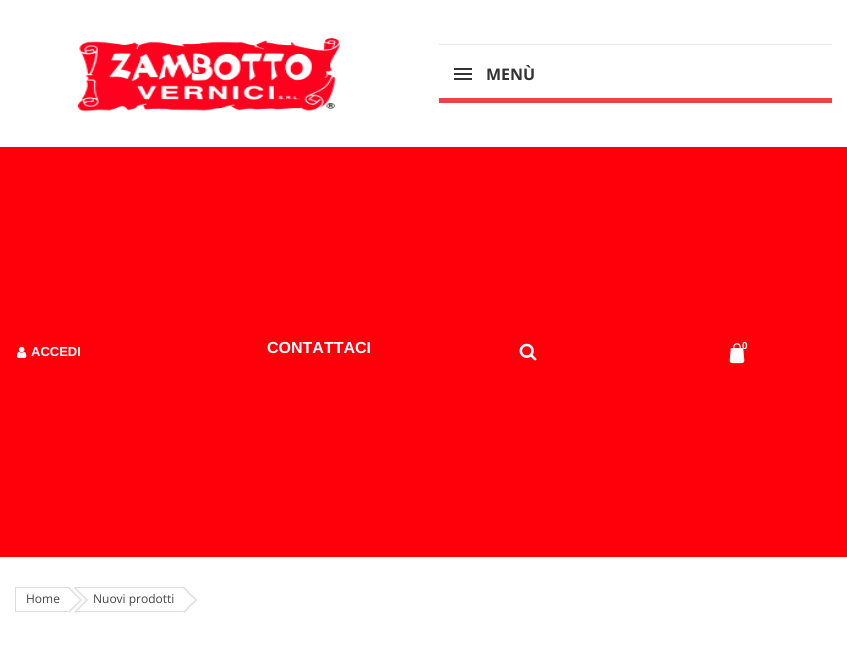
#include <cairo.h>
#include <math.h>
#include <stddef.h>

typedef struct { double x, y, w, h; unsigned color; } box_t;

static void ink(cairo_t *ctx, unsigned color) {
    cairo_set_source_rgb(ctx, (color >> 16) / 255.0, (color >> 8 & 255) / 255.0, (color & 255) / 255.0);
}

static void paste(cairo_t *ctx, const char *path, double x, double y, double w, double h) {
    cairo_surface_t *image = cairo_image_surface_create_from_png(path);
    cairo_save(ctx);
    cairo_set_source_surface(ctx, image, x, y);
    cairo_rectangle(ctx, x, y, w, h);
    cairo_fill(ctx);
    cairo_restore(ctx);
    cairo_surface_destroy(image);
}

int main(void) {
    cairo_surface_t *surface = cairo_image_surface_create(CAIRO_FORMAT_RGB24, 847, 654);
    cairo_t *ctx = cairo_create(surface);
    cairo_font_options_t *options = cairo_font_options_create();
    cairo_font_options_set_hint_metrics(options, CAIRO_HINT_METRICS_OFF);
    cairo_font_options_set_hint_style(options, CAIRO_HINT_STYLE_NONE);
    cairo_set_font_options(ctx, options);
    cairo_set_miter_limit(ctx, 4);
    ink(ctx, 0xFFFFFF);
    cairo_paint(ctx);
    paste(ctx, "media/1.png", 78, 38, 262, 74);
    {
        static const box_t items[] = {
            {439, 44, 393, 1, 0xE7E7E7},
            {439, 98, 393, 5, 0xEC4249},
            {454, 68, 18, 2, 0x333333},
            {454, 73, 18, 2, 0x333333},
            {454, 78, 18, 2, 0x333333},
        };
        for (size_t i = 0; i < sizeof items / sizeof *items; i++) {
            ink(ctx, items[i].color);
            cairo_rectangle(ctx, items[i].x, items[i].y, items[i].w, items[i].h);
            cairo_fill(ctx);
        }
    }
    cairo_select_font_face(ctx, "Open Sans", CAIRO_FONT_SLANT_NORMAL, CAIRO_FONT_WEIGHT_BOLD);
    cairo_set_font_size(ctx, 16);
    cairo_move_to(ctx, 486, 80);
    cairo_show_text(ctx, "MENÙ");
    ink(ctx, 0xFF000B);
    cairo_rectangle(ctx, 0, 147, 847, 410);
    cairo_fill(ctx);
    paste(ctx, "media/2.png", 17, 346, 10, 12);
    cairo_select_font_face(ctx, "Liberation Sans", CAIRO_FONT_SLANT_NORMAL, CAIRO_FONT_WEIGHT_BOLD);
    cairo_set_font_size(ctx, 13);
    ink(ctx, 0xFFFFFF);
    cairo_move_to(ctx, 31, 356);
    cairo_show_text(ctx, "ACCEDI");
    cairo_set_font_size(ctx, 16);
    cairo_move_to(ctx, 267, 353);
    cairo_show_text(ctx, "CONTATTACI");
    paste(ctx, "media/3.png", 519, 343, 18, 18);
    paste(ctx, "media/4.png", 729, 343, 16, 21);
    cairo_set_font_size(ctx, 10);
    cairo_move_to(ctx, 742, 349);
    cairo_show_text(ctx, "0");
    cairo_rectangle(ctx, 15.5, 587.5, 53, 24);
    ink(ctx, 0xDDDDDD);
    cairo_set_line_width(ctx, 1);
    cairo_stroke(ctx);
    cairo_new_path(ctx);
    cairo_move_to(ctx, 75, 613);
    cairo_line_to(ctx, 75, 587);
    cairo_line_to(ctx, 88, 600);
    cairo_close_path(ctx);
    cairo_fill(ctx);
    cairo_rectangle(ctx, 74.5, 587.5, 109, 24);
    cairo_stroke(ctx);
    ink(ctx, 0xFFFFFF);
    cairo_new_path(ctx);
    cairo_move_to(ctx, 74, 612);
    cairo_line_to(ctx, 74, 588);
    cairo_line_to(ctx, 86, 600);
    cairo_close_path(ctx);
    cairo_fill(ctx);
    ink(ctx, 0xDDDDDD);
    cairo_new_path(ctx);
    cairo_move_to(ctx, 69, 613);
    cairo_line_to(ctx, 69, 587);
    cairo_line_to(ctx, 82, 600);
    cairo_close_path(ctx);
    cairo_fill(ctx);
    cairo_select_font_face(ctx, "Open Sans", CAIRO_FONT_SLANT_NORMAL, CAIRO_FONT_WEIGHT_NORMAL);
    cairo_set_font_size(ctx, 12);
    ink(ctx, 0x444444);
    cairo_move_to(ctx, 26, 603);
    cairo_show_text(ctx, "Home");
    ink(ctx, 0xFFFFFF);
    cairo_new_path(ctx);
    cairo_move_to(ctx, 68, 612);
    cairo_line_to(ctx, 68, 588);
    cairo_line_to(ctx, 80, 600);
    cairo_close_path(ctx);
    cairo_fill(ctx);
    ink(ctx, 0xDDDDDD);
    cairo_new_path(ctx);
    cairo_move_to(ctx, 184, 613);
    cairo_line_to(ctx, 184, 587);
    cairo_line_to(ctx, 197, 600);
    cairo_close_path(ctx);
    cairo_fill(ctx);
    ink(ctx, 0x444444);
    cairo_move_to(ctx, 93, 603);
    cairo_show_text(ctx, "Nuovi prodotti");
    ink(ctx, 0xFFFFFF);
    cairo_new_path(ctx);
    cairo_move_to(ctx, 183, 612);
    cairo_line_to(ctx, 183, 588);
    cairo_line_to(ctx, 195, 600);
    cairo_close_path(ctx);
    cairo_fill(ctx);
    cairo_surface_write_to_png(surface, "image.png");
    cairo_font_options_destroy(options);
    cairo_destroy(ctx);
    cairo_surface_destroy(surface);
    return 0;
}
